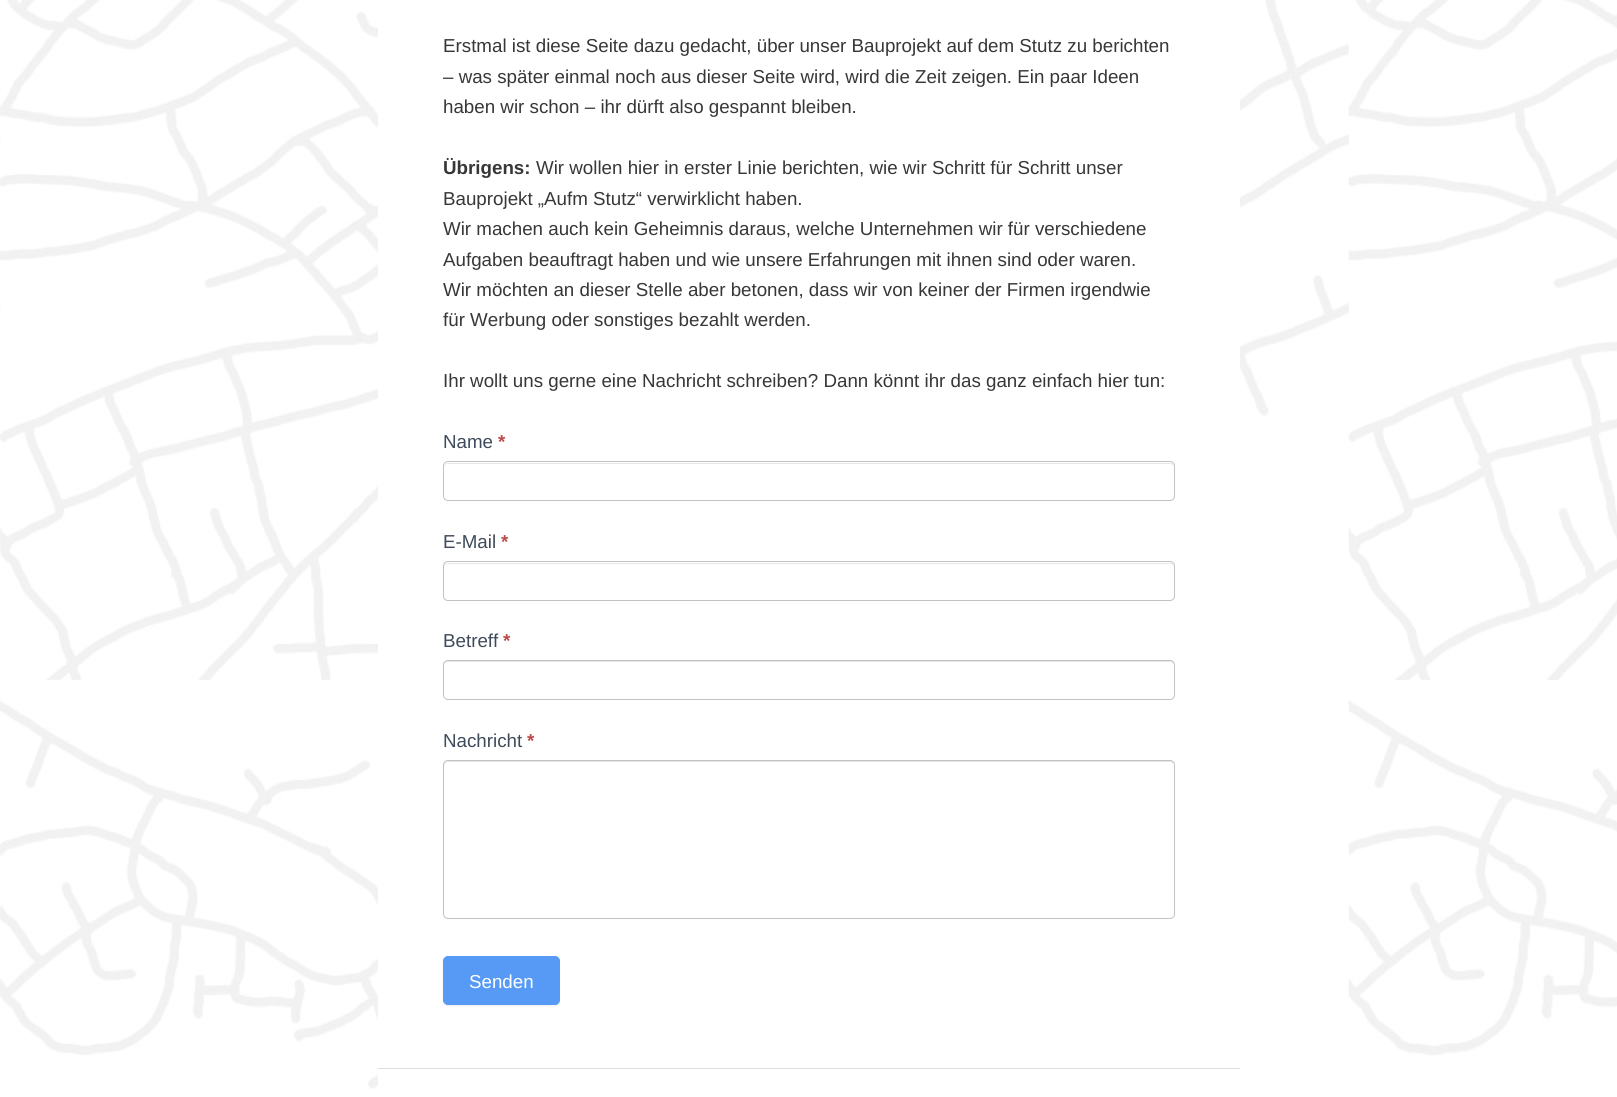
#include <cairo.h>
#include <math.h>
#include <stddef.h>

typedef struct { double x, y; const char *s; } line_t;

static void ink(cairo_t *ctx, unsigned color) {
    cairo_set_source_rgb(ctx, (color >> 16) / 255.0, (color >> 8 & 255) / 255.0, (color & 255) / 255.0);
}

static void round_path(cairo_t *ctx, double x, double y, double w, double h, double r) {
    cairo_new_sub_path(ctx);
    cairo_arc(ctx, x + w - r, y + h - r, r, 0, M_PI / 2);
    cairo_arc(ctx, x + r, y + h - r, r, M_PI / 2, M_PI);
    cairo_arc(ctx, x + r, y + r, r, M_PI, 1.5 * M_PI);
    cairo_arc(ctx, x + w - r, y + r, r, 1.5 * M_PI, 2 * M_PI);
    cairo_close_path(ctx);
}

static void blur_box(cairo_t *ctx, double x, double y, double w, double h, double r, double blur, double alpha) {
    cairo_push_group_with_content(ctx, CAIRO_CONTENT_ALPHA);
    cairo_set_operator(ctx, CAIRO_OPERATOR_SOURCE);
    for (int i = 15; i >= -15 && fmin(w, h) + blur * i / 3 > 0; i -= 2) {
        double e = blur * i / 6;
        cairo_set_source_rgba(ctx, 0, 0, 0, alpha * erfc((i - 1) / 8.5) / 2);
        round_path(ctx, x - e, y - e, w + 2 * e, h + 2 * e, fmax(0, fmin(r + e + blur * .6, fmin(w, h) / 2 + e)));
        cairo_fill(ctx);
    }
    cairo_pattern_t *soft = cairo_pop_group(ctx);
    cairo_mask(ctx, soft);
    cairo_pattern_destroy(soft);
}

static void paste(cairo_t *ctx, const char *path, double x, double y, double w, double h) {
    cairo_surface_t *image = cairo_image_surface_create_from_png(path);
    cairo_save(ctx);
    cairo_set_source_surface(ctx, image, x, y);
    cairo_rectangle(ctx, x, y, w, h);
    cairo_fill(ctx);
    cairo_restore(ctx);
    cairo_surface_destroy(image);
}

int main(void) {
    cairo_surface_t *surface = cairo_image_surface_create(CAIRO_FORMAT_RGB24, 1617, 1097);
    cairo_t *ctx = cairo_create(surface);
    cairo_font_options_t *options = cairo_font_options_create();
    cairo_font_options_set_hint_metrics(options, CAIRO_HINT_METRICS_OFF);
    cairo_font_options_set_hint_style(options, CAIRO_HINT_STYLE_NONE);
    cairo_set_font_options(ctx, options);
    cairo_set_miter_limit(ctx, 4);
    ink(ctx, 0xFFFFFF);
    cairo_paint(ctx);
    paste(ctx, "media/1.png", 0, 0, 1617, 1097);
    ink(ctx, 0xFFFFFF);
    cairo_rectangle(ctx, 378, 0, 862, 1097);
    cairo_fill(ctx);
    cairo_select_font_face(ctx, "Liberation Sans", CAIRO_FONT_SLANT_NORMAL, CAIRO_FONT_WEIGHT_NORMAL);
    cairo_set_font_size(ctx, 18.75);
    ink(ctx, 0x373737);
    {
        static const line_t items[] = {
            {443, 52, "Erstmal ist diese Seite dazu gedacht, über unser Bauprojekt auf dem Stutz zu berichten"},
            {443, 83, "– was später einmal noch aus dieser Seite wird, wird die Zeit zeigen. Ein paar Ideen"},
            {443, 113, "haben wir schon – ihr dürft also gespannt bleiben."},
        };
        for (size_t i = 0; i < sizeof items / sizeof *items; i++) {
            cairo_move_to(ctx, items[i].x, items[i].y);
            cairo_show_text(ctx, items[i].s);
        }
    }
    cairo_select_font_face(ctx, "Liberation Sans", CAIRO_FONT_SLANT_NORMAL, CAIRO_FONT_WEIGHT_BOLD);
    cairo_move_to(ctx, 443, 174);
    cairo_show_text(ctx, "Übrigens:");
    cairo_select_font_face(ctx, "Liberation Sans", CAIRO_FONT_SLANT_NORMAL, CAIRO_FONT_WEIGHT_NORMAL);
    {
        static const line_t items[] = {
            {536, 174, "Wir wollen hier in erster Linie berichten, wie wir Schritt für Schritt unser"},
            {443, 205, "Bauprojekt „Aufm Stutz“ verwirklicht haben."},
            {443, 235, "Wir machen auch kein Geheimnis daraus, welche Unternehmen wir für verschiedene"},
            {443, 266, "Aufgaben beauftragt haben und wie unsere Erfahrungen mit ihnen sind oder waren."},
            {443, 296, "Wir möchten an dieser Stelle aber betonen, dass wir von keiner der Firmen irgendwie"},
            {443, 326, "für Werbung oder sonstiges bezahlt werden."},
            {443, 387, "Ihr wollt uns gerne eine Nachricht schreiben? Dann könnt ihr das ganz einfach hier tun:"},
        };
        for (size_t i = 0; i < sizeof items / sizeof *items; i++) {
            cairo_move_to(ctx, items[i].x, items[i].y);
            cairo_show_text(ctx, items[i].s);
        }
    }
    ink(ctx, 0x3F4B5B);
    cairo_move_to(ctx, 443, 448);
    cairo_show_text(ctx, "Name");
    cairo_select_font_face(ctx, "Liberation Sans", CAIRO_FONT_SLANT_NORMAL, CAIRO_FONT_WEIGHT_BOLD);
    ink(ctx, 0xB94A48);
    cairo_move_to(ctx, 498, 448);
    cairo_show_text(ctx, "*");
    ink(ctx, 0xE6E6E6);
    cairo_new_path(ctx);
    cairo_move_to(ctx, 448, 464);
    cairo_line_to(ctx, 1170, 464);
    cairo_curve_to(ctx, 1172, 464, 1174, 465, 1174, 468);
    cairo_curve_to(ctx, 1174, 465, 1173, 463, 1170, 463);
    cairo_line_to(ctx, 448, 463);
    cairo_line_to(ctx, 445, 464);
    cairo_line_to(ctx, 444, 465);
    cairo_line_to(ctx, 444, 468);
    cairo_curve_to(ctx, 444, 465, 445, 464, 448, 464);
    cairo_close_path(ctx);
    cairo_fill(ctx);
    round_path(ctx, 443.5, 461.5, 731, 39, 4.5);
    ink(ctx, 0xBFC3C8);
    cairo_set_line_width(ctx, 1);
    cairo_stroke(ctx);
    cairo_select_font_face(ctx, "Liberation Sans", CAIRO_FONT_SLANT_NORMAL, CAIRO_FONT_WEIGHT_NORMAL);
    ink(ctx, 0x3F4B5B);
    cairo_move_to(ctx, 443, 548);
    cairo_show_text(ctx, "E-Mail");
    cairo_select_font_face(ctx, "Liberation Sans", CAIRO_FONT_SLANT_NORMAL, CAIRO_FONT_WEIGHT_BOLD);
    ink(ctx, 0xB94A48);
    cairo_move_to(ctx, 501, 548);
    cairo_show_text(ctx, "*");
    ink(ctx, 0xE6E6E6);
    cairo_new_path(ctx);
    cairo_move_to(ctx, 448, 564);
    cairo_line_to(ctx, 1170, 564);
    cairo_curve_to(ctx, 1172, 564, 1174, 565, 1174, 568);
    cairo_curve_to(ctx, 1174, 565, 1173, 563, 1170, 563);
    cairo_line_to(ctx, 448, 563);
    cairo_line_to(ctx, 445, 564);
    cairo_line_to(ctx, 444, 565);
    cairo_line_to(ctx, 444, 568);
    cairo_curve_to(ctx, 444, 565, 445, 564, 448, 564);
    cairo_close_path(ctx);
    cairo_fill(ctx);
    round_path(ctx, 443.5, 561.5, 731, 39, 4.5);
    ink(ctx, 0xBFC3C8);
    cairo_stroke(ctx);
    cairo_select_font_face(ctx, "Liberation Sans", CAIRO_FONT_SLANT_NORMAL, CAIRO_FONT_WEIGHT_NORMAL);
    ink(ctx, 0x3F4B5B);
    cairo_move_to(ctx, 443, 647);
    cairo_show_text(ctx, "Betreff");
    cairo_select_font_face(ctx, "Liberation Sans", CAIRO_FONT_SLANT_NORMAL, CAIRO_FONT_WEIGHT_BOLD);
    ink(ctx, 0xB94A48);
    cairo_move_to(ctx, 503, 647);
    cairo_show_text(ctx, "*");
    ink(ctx, 0xE6E6E6);
    cairo_new_path(ctx);
    cairo_move_to(ctx, 448, 662);
    cairo_line_to(ctx, 1170, 662);
    cairo_curve_to(ctx, 1172, 662, 1174, 664, 1174, 666);
    cairo_curve_to(ctx, 1174, 663, 1173, 661, 1170, 661);
    cairo_line_to(ctx, 448, 661);
    cairo_line_to(ctx, 445, 662);
    cairo_line_to(ctx, 444, 663);
    cairo_line_to(ctx, 444, 666);
    cairo_curve_to(ctx, 444, 664, 445, 662, 448, 662);
    cairo_close_path(ctx);
    cairo_fill(ctx);
    round_path(ctx, 443.5, 660.5, 731, 39, 4.5);
    ink(ctx, 0xBFC3C8);
    cairo_stroke(ctx);
    cairo_select_font_face(ctx, "Liberation Sans", CAIRO_FONT_SLANT_NORMAL, CAIRO_FONT_WEIGHT_NORMAL);
    ink(ctx, 0x3F4B5B);
    cairo_move_to(ctx, 443, 747);
    cairo_show_text(ctx, "Nachricht");
    cairo_select_font_face(ctx, "Liberation Sans", CAIRO_FONT_SLANT_NORMAL, CAIRO_FONT_WEIGHT_BOLD);
    ink(ctx, 0xB94A48);
    cairo_move_to(ctx, 527, 747);
    cairo_show_text(ctx, "*");
    ink(ctx, 0xE6E6E6);
    cairo_new_path(ctx);
    cairo_move_to(ctx, 448, 762);
    cairo_line_to(ctx, 1170, 762);
    cairo_curve_to(ctx, 1172, 762, 1174, 764, 1174, 766);
    cairo_curve_to(ctx, 1174, 763, 1173, 761, 1170, 761);
    cairo_line_to(ctx, 448, 761);
    cairo_line_to(ctx, 445, 762);
    cairo_line_to(ctx, 444, 763);
    cairo_line_to(ctx, 444, 766);
    cairo_curve_to(ctx, 444, 764, 445, 762, 448, 762);
    cairo_close_path(ctx);
    cairo_fill(ctx);
    round_path(ctx, 443.5, 760.5, 731, 158, 4.5);
    ink(ctx, 0xBFC3C8);
    cairo_stroke(ctx);
    ink(ctx, 0xEEEEEE);
    blur_box(ctx, 443, 958, 117, 48, 5, 0.5, 1);
    ink(ctx, 0x579AF6);
    round_path(ctx, 443.5, 956.5, 116, 48, 4.5);
    cairo_fill_preserve(ctx);
    cairo_stroke(ctx);
    cairo_select_font_face(ctx, "Liberation Sans", CAIRO_FONT_SLANT_NORMAL, CAIRO_FONT_WEIGHT_NORMAL);
    ink(ctx, 0xFFFFFF);
    cairo_move_to(ctx, 469, 988);
    cairo_show_text(ctx, "Senden");
    ink(ctx, 0xDDDDDD);
    cairo_rectangle(ctx, 378, 1068, 862, 1);
    cairo_fill(ctx);
    cairo_surface_write_to_png(surface, "image.png");
    cairo_font_options_destroy(options);
    cairo_destroy(ctx);
    cairo_surface_destroy(surface);
    return 0;
}
